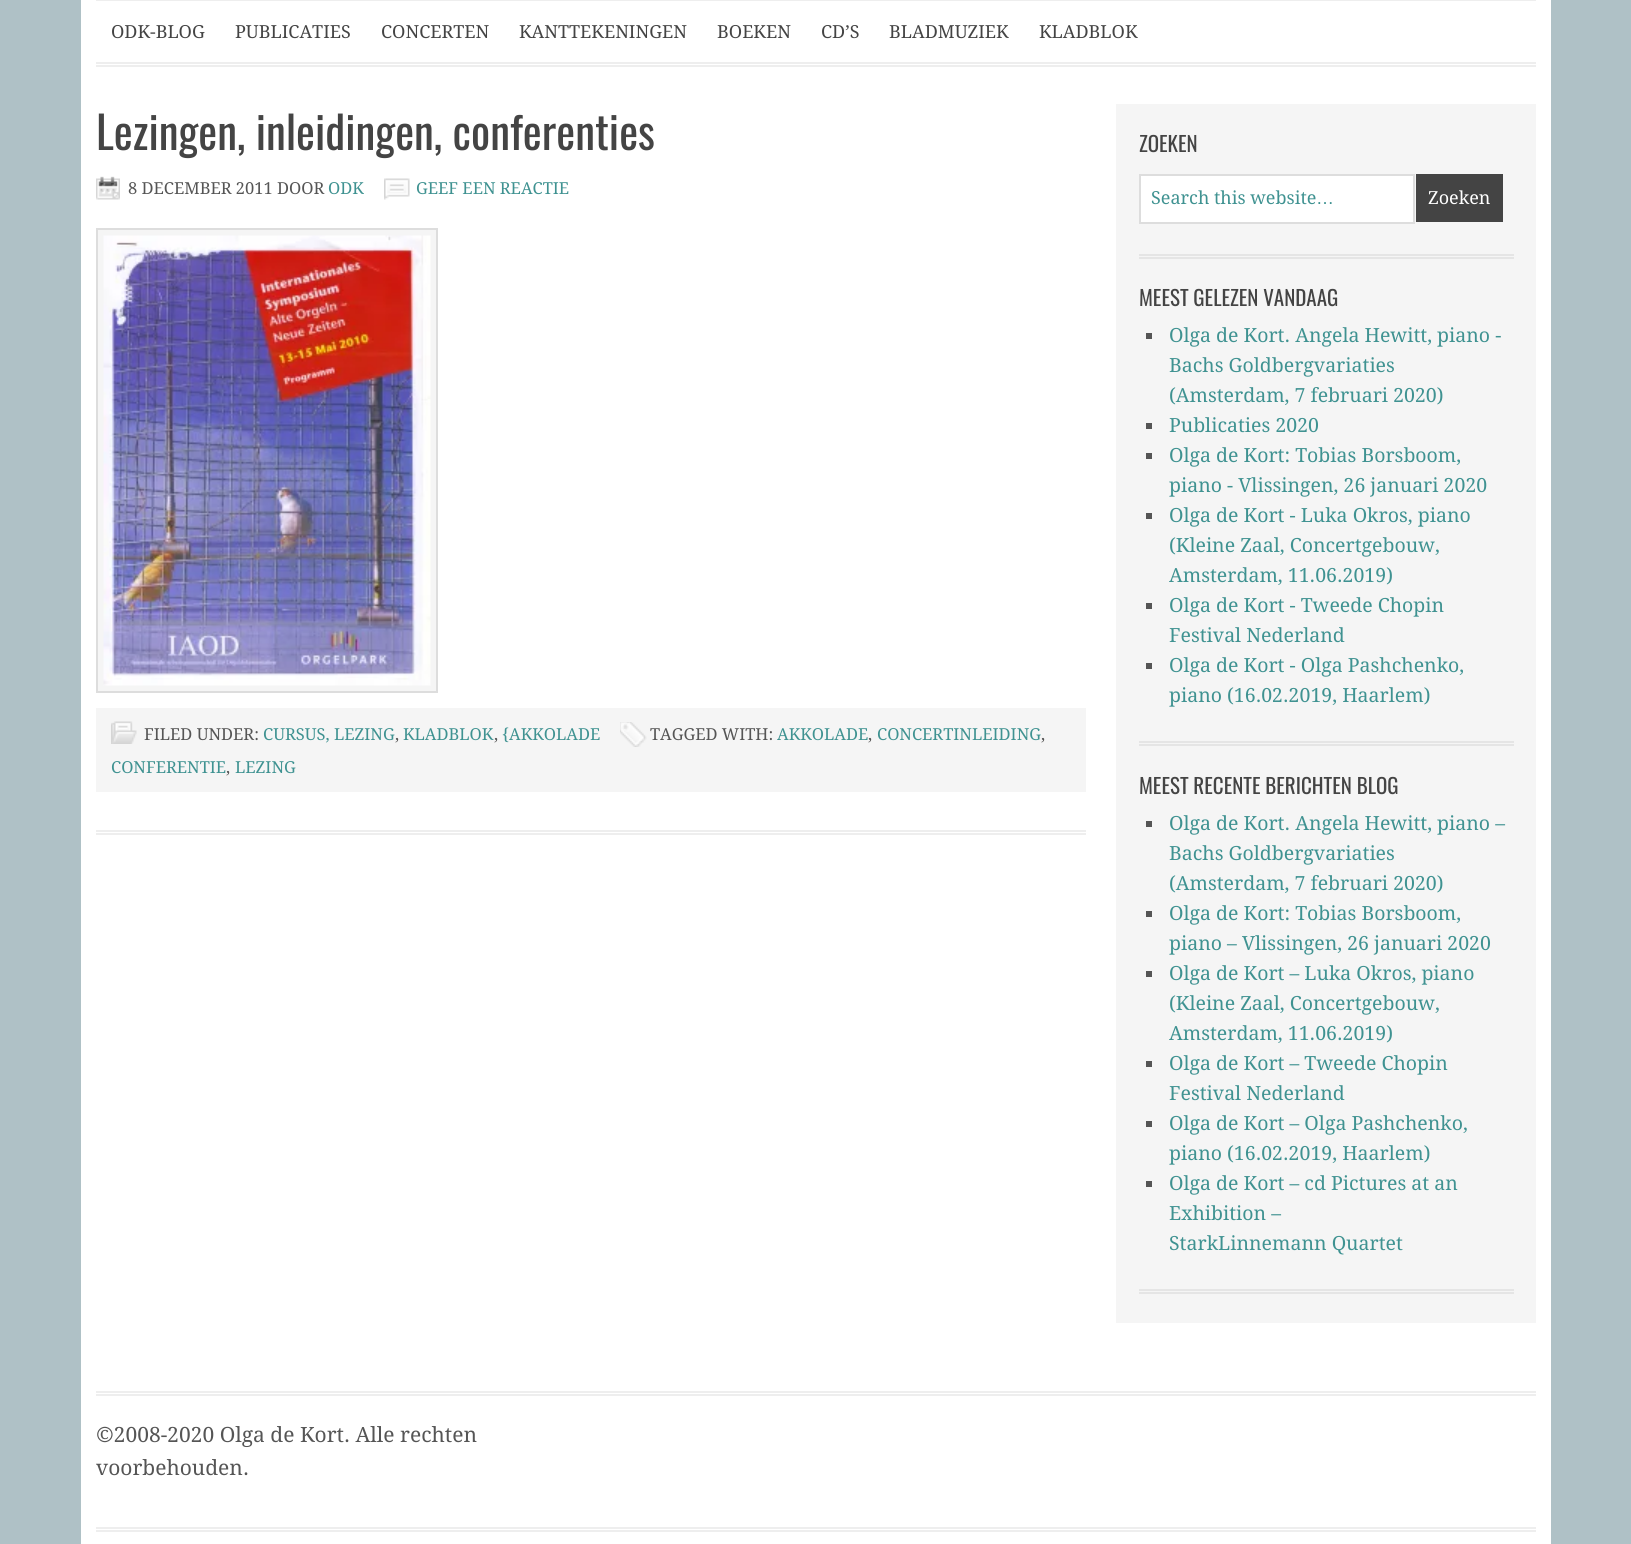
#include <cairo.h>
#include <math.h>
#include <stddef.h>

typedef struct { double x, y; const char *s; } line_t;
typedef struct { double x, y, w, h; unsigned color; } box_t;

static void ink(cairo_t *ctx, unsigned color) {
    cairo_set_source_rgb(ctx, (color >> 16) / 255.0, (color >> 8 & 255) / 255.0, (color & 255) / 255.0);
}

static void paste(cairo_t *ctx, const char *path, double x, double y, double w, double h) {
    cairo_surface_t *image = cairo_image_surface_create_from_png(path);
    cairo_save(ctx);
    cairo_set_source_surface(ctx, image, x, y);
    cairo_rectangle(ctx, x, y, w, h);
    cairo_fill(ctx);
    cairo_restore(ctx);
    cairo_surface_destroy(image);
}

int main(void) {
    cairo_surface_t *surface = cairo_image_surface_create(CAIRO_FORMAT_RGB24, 1631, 1544);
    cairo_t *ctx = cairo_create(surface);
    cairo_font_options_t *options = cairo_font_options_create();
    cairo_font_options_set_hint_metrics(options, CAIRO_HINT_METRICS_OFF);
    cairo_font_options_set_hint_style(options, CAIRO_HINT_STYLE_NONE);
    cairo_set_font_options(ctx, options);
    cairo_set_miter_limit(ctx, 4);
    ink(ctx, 0xAFC1C6);
    cairo_paint(ctx);
    {
        static const box_t items[] = {
            {81, 0, 1470, 1544, 0xFFFFFF},
            {96, 0, 1440, 1, 0xEEEEEE},
            {96, 62, 1440, 2, 0xEEEEEE},
            {96, 65, 1440, 2, 0xEEEEEE},
        };
        for (size_t i = 0; i < sizeof items / sizeof *items; i++) {
            ink(ctx, items[i].color);
            cairo_rectangle(ctx, items[i].x, items[i].y, items[i].w, items[i].h);
            cairo_fill(ctx);
        }
    }
    cairo_select_font_face(ctx, "Droid Serif", CAIRO_FONT_SLANT_NORMAL, CAIRO_FONT_WEIGHT_NORMAL);
    cairo_set_font_size(ctx, 18);
    ink(ctx, 0x444444);
    {
        static const line_t items[] = {
            {111, 38, "ODK-BLOG"},
            {235, 38, "PUBLICATIES"},
            {381, 38, "CONCERTEN"},
            {519, 38, "KANTTEKENINGEN"},
            {717, 38, "BOEKEN"},
            {821, 38, "CD’S"},
            {889, 38, "BLADMUZIEK"},
            {1039, 38, "KLADBLOK"},
        };
        for (size_t i = 0; i < sizeof items / sizeof *items; i++) {
            cairo_move_to(ctx, items[i].x, items[i].y);
            cairo_show_text(ctx, items[i].s);
        }
    }
    ink(ctx, 0xEEEEEE);
    cairo_rectangle(ctx, 96, 830, 990, 2);
    cairo_fill(ctx);
    cairo_rectangle(ctx, 96, 833, 990, 2);
    cairo_fill(ctx);
    cairo_select_font_face(ctx, "Oswald", CAIRO_FONT_SLANT_NORMAL, CAIRO_FONT_WEIGHT_NORMAL);
    cairo_set_font_size(ctx, 45);
    ink(ctx, 0x444444);
    cairo_move_to(ctx, 96, 150);
    cairo_show_text(ctx, "Lezingen, inleidingen, conferenties");
    paste(ctx, "media/1.png", 96, 176, 24, 24);
    cairo_select_font_face(ctx, "Droid Serif", CAIRO_FONT_SLANT_NORMAL, CAIRO_FONT_WEIGHT_NORMAL);
    cairo_set_font_size(ctx, 16.5);
    ink(ctx, 0x555555);
    cairo_move_to(ctx, 128, 194);
    cairo_show_text(ctx, "8 DECEMBER 2011 DOOR");
    ink(ctx, 0x3F9291);
    cairo_move_to(ctx, 328, 194);
    cairo_show_text(ctx, "ODK");
    paste(ctx, "media/2.png", 384, 178, 26, 22);
    cairo_move_to(ctx, 416, 194);
    cairo_show_text(ctx, "GEEF EEN REACTIE");
    ink(ctx, 0xF5F5F5);
    cairo_rectangle(ctx, 97, 229, 340, 463);
    cairo_fill_preserve(ctx);
    ink(ctx, 0xDDDDDD);
    cairo_stroke(ctx);
    paste(ctx, "media/3.png", 103, 235, 328, 451);
    ink(ctx, 0xF5F5F5);
    cairo_rectangle(ctx, 96, 708, 990, 84);
    cairo_fill(ctx);
    paste(ctx, "media/4.png", 111, 721, 26, 23);
    ink(ctx, 0x555555);
    cairo_move_to(ctx, 144, 740);
    cairo_show_text(ctx, "FILED UNDER:");
    ink(ctx, 0x3F9291);
    cairo_move_to(ctx, 263, 740);
    cairo_show_text(ctx, "CURSUS, LEZING");
    ink(ctx, 0x555555);
    cairo_move_to(ctx, 395, 740);
    cairo_show_text(ctx, ",");
    ink(ctx, 0x3F9291);
    cairo_move_to(ctx, 403, 740);
    cairo_show_text(ctx, "KLADBLOK");
    ink(ctx, 0x555555);
    cairo_move_to(ctx, 494, 740);
    cairo_show_text(ctx, ",");
    ink(ctx, 0x3F9291);
    cairo_move_to(ctx, 502, 740);
    cairo_show_text(ctx, "{AKKOLADE");
    paste(ctx, "media/5.png", 620, 722, 27, 25);
    ink(ctx, 0x555555);
    cairo_move_to(ctx, 650, 740);
    cairo_show_text(ctx, "TAGGED WITH:");
    ink(ctx, 0x3F9291);
    cairo_move_to(ctx, 777, 740);
    cairo_show_text(ctx, "AKKOLADE");
    ink(ctx, 0x555555);
    cairo_move_to(ctx, 868, 740);
    cairo_show_text(ctx, ",");
    ink(ctx, 0x3F9291);
    cairo_move_to(ctx, 877, 740);
    cairo_show_text(ctx, "CONCERTINLEIDING");
    ink(ctx, 0x555555);
    cairo_move_to(ctx, 1041, 740);
    cairo_show_text(ctx, ",");
    ink(ctx, 0x3F9291);
    cairo_move_to(ctx, 111, 773);
    cairo_show_text(ctx, "CONFERENTIE");
    ink(ctx, 0x555555);
    cairo_move_to(ctx, 226, 773);
    cairo_show_text(ctx, ",");
    ink(ctx, 0x3F9291);
    cairo_move_to(ctx, 235, 773);
    cairo_show_text(ctx, "LEZING");
    {
        static const box_t items[] = {
            {1116, 104, 420, 1219, 0xF5F5F5},
            {1139, 254, 375, 2, 0xE5E5E5},
            {1139, 257, 375, 2, 0xE5E5E5},
        };
        for (size_t i = 0; i < sizeof items / sizeof *items; i++) {
            ink(ctx, items[i].color);
            cairo_rectangle(ctx, items[i].x, items[i].y, items[i].w, items[i].h);
            cairo_fill(ctx);
        }
    }
    cairo_select_font_face(ctx, "Oswald", CAIRO_FONT_SLANT_NORMAL, CAIRO_FONT_WEIGHT_NORMAL);
    cairo_set_font_size(ctx, 21);
    ink(ctx, 0x444444);
    cairo_move_to(ctx, 1139, 152);
    cairo_show_text(ctx, "ZOEKEN");
    ink(ctx, 0xFFFFFF);
    cairo_rectangle(ctx, 1140, 175, 274, 48);
    cairo_fill_preserve(ctx);
    ink(ctx, 0xDDDDDD);
    cairo_stroke(ctx);
    cairo_select_font_face(ctx, "Droid Serif", CAIRO_FONT_SLANT_NORMAL, CAIRO_FONT_WEIGHT_NORMAL);
    cairo_set_font_size(ctx, 18);
    ink(ctx, 0x3F9291);
    cairo_move_to(ctx, 1151, 204);
    cairo_show_text(ctx, "Search this website");
    cairo_select_font_face(ctx, "Liberation Sans", CAIRO_FONT_SLANT_NORMAL, CAIRO_FONT_WEIGHT_NORMAL);
    cairo_move_to(ctx, 1316, 204);
    cairo_show_text(ctx, "…");
    ink(ctx, 0x444444);
    cairo_rectangle(ctx, 1416, 174, 87, 48);
    cairo_fill(ctx);
    cairo_select_font_face(ctx, "Droid Serif", CAIRO_FONT_SLANT_NORMAL, CAIRO_FONT_WEIGHT_NORMAL);
    ink(ctx, 0xFFFFFF);
    cairo_move_to(ctx, 1428, 204);
    cairo_show_text(ctx, "Zoeken");
    ink(ctx, 0xE5E5E5);
    cairo_rectangle(ctx, 1139, 741, 375, 2);
    cairo_fill(ctx);
    cairo_rectangle(ctx, 1139, 744, 375, 2);
    cairo_fill(ctx);
    cairo_select_font_face(ctx, "Oswald", CAIRO_FONT_SLANT_NORMAL, CAIRO_FONT_WEIGHT_NORMAL);
    cairo_set_font_size(ctx, 21);
    ink(ctx, 0x444444);
    cairo_move_to(ctx, 1139, 306);
    cairo_show_text(ctx, "MEEST GELEZEN VANDAAG");
    ink(ctx, 0x555555);
    cairo_rectangle(ctx, 1146, 333, 6, 6);
    cairo_fill(ctx);
    cairo_select_font_face(ctx, "Droid Serif", CAIRO_FONT_SLANT_NORMAL, CAIRO_FONT_WEIGHT_NORMAL);
    cairo_set_font_size(ctx, 19.5);
    ink(ctx, 0x3F9291);
    {
        static const line_t items[] = {
            {1169, 342, "Olga de Kort. Angela Hewitt, piano -"},
            {1169, 372, "Bachs Goldbergvariaties"},
            {1169, 402, "(Amsterdam, 7 februari 2020)"},
        };
        for (size_t i = 0; i < sizeof items / sizeof *items; i++) {
            cairo_move_to(ctx, items[i].x, items[i].y);
            cairo_show_text(ctx, items[i].s);
        }
    }
    ink(ctx, 0x555555);
    cairo_rectangle(ctx, 1146, 423, 6, 6);
    cairo_fill(ctx);
    ink(ctx, 0x3F9291);
    cairo_move_to(ctx, 1169, 432);
    cairo_show_text(ctx, "Publicaties 2020");
    ink(ctx, 0x555555);
    cairo_rectangle(ctx, 1146, 453, 6, 6);
    cairo_fill(ctx);
    ink(ctx, 0x3F9291);
    cairo_move_to(ctx, 1169, 462);
    cairo_show_text(ctx, "Olga de Kort: Tobias Borsboom,");
    cairo_move_to(ctx, 1169, 492);
    cairo_show_text(ctx, "piano - Vlissingen, 26 januari 2020");
    ink(ctx, 0x555555);
    cairo_rectangle(ctx, 1146, 513, 6, 6);
    cairo_fill(ctx);
    ink(ctx, 0x3F9291);
    {
        static const line_t items[] = {
            {1169, 522, "Olga de Kort - Luka Okros, piano"},
            {1169, 552, "(Kleine Zaal, Concertgebouw,"},
            {1169, 582, "Amsterdam, 11.06.2019)"},
        };
        for (size_t i = 0; i < sizeof items / sizeof *items; i++) {
            cairo_move_to(ctx, items[i].x, items[i].y);
            cairo_show_text(ctx, items[i].s);
        }
    }
    ink(ctx, 0x555555);
    cairo_rectangle(ctx, 1146, 603, 6, 6);
    cairo_fill(ctx);
    ink(ctx, 0x3F9291);
    cairo_move_to(ctx, 1169, 612);
    cairo_show_text(ctx, "Olga de Kort - Tweede Chopin");
    cairo_move_to(ctx, 1169, 642);
    cairo_show_text(ctx, "Festival Nederland");
    ink(ctx, 0x555555);
    cairo_rectangle(ctx, 1146, 663, 6, 6);
    cairo_fill(ctx);
    ink(ctx, 0x3F9291);
    cairo_move_to(ctx, 1169, 672);
    cairo_show_text(ctx, "Olga de Kort - Olga Pashchenko,");
    cairo_move_to(ctx, 1169, 702);
    cairo_show_text(ctx, "piano (16.02.2019, Haarlem)");
    ink(ctx, 0xE5E5E5);
    cairo_rectangle(ctx, 1139, 1289, 375, 2);
    cairo_fill(ctx);
    cairo_rectangle(ctx, 1139, 1292, 375, 2);
    cairo_fill(ctx);
    cairo_select_font_face(ctx, "Oswald", CAIRO_FONT_SLANT_NORMAL, CAIRO_FONT_WEIGHT_NORMAL);
    cairo_set_font_size(ctx, 21);
    ink(ctx, 0x444444);
    cairo_move_to(ctx, 1139, 794);
    cairo_show_text(ctx, "MEEST RECENTE BERICHTEN BLOG");
    ink(ctx, 0x555555);
    cairo_rectangle(ctx, 1146, 821, 6, 6);
    cairo_fill(ctx);
    cairo_select_font_face(ctx, "Droid Serif", CAIRO_FONT_SLANT_NORMAL, CAIRO_FONT_WEIGHT_NORMAL);
    cairo_set_font_size(ctx, 19.5);
    ink(ctx, 0x3F9291);
    {
        static const line_t items[] = {
            {1169, 830, "Olga de Kort. Angela Hewitt, piano –"},
            {1169, 860, "Bachs Goldbergvariaties"},
            {1169, 890, "(Amsterdam, 7 februari 2020)"},
        };
        for (size_t i = 0; i < sizeof items / sizeof *items; i++) {
            cairo_move_to(ctx, items[i].x, items[i].y);
            cairo_show_text(ctx, items[i].s);
        }
    }
    ink(ctx, 0x555555);
    cairo_rectangle(ctx, 1146, 911, 6, 6);
    cairo_fill(ctx);
    ink(ctx, 0x3F9291);
    cairo_move_to(ctx, 1169, 920);
    cairo_show_text(ctx, "Olga de Kort: Tobias Borsboom,");
    cairo_move_to(ctx, 1169, 950);
    cairo_show_text(ctx, "piano – Vlissingen, 26 januari 2020");
    ink(ctx, 0x555555);
    cairo_rectangle(ctx, 1146, 971, 6, 6);
    cairo_fill(ctx);
    ink(ctx, 0x3F9291);
    {
        static const line_t items[] = {
            {1169, 980, "Olga de Kort – Luka Okros, piano"},
            {1169, 1010, "(Kleine Zaal, Concertgebouw,"},
            {1169, 1040, "Amsterdam, 11.06.2019)"},
        };
        for (size_t i = 0; i < sizeof items / sizeof *items; i++) {
            cairo_move_to(ctx, items[i].x, items[i].y);
            cairo_show_text(ctx, items[i].s);
        }
    }
    ink(ctx, 0x555555);
    cairo_rectangle(ctx, 1146, 1061, 6, 6);
    cairo_fill(ctx);
    ink(ctx, 0x3F9291);
    cairo_move_to(ctx, 1169, 1070);
    cairo_show_text(ctx, "Olga de Kort – Tweede Chopin");
    cairo_move_to(ctx, 1169, 1100);
    cairo_show_text(ctx, "Festival Nederland");
    ink(ctx, 0x555555);
    cairo_rectangle(ctx, 1146, 1121, 6, 6);
    cairo_fill(ctx);
    ink(ctx, 0x3F9291);
    cairo_move_to(ctx, 1169, 1130);
    cairo_show_text(ctx, "Olga de Kort – Olga Pashchenko,");
    cairo_move_to(ctx, 1169, 1160);
    cairo_show_text(ctx, "piano (16.02.2019, Haarlem)");
    ink(ctx, 0x555555);
    cairo_rectangle(ctx, 1146, 1181, 6, 6);
    cairo_fill(ctx);
    ink(ctx, 0x3F9291);
    {
        static const line_t items[] = {
            {1169, 1190, "Olga de Kort – cd Pictures at an"},
            {1169, 1220, "Exhibition –"},
            {1169, 1250, "StarkLinnemann Quartet"},
        };
        for (size_t i = 0; i < sizeof items / sizeof *items; i++) {
            cairo_move_to(ctx, items[i].x, items[i].y);
            cairo_show_text(ctx, items[i].s);
        }
    }
    ink(ctx, 0xEEEEEE);
    cairo_rectangle(ctx, 96, 1391, 1440, 2);
    cairo_fill(ctx);
    cairo_rectangle(ctx, 96, 1394, 1440, 2);
    cairo_fill(ctx);
    cairo_set_font_size(ctx, 21);
    ink(ctx, 0x555555);
    cairo_move_to(ctx, 96, 1442);
    cairo_show_text(ctx, "©2008-2020 Olga de Kort. Alle rechten");
    cairo_move_to(ctx, 96, 1475);
    cairo_show_text(ctx, "voorbehouden.");
    ink(ctx, 0xEEEEEE);
    cairo_rectangle(ctx, 96, 1527, 1440, 2);
    cairo_fill(ctx);
    cairo_rectangle(ctx, 96, 1530, 1440, 2);
    cairo_fill(ctx);
    cairo_surface_write_to_png(surface, "image.png");
    cairo_font_options_destroy(options);
    cairo_destroy(ctx);
    cairo_surface_destroy(surface);
    return 0;
}
